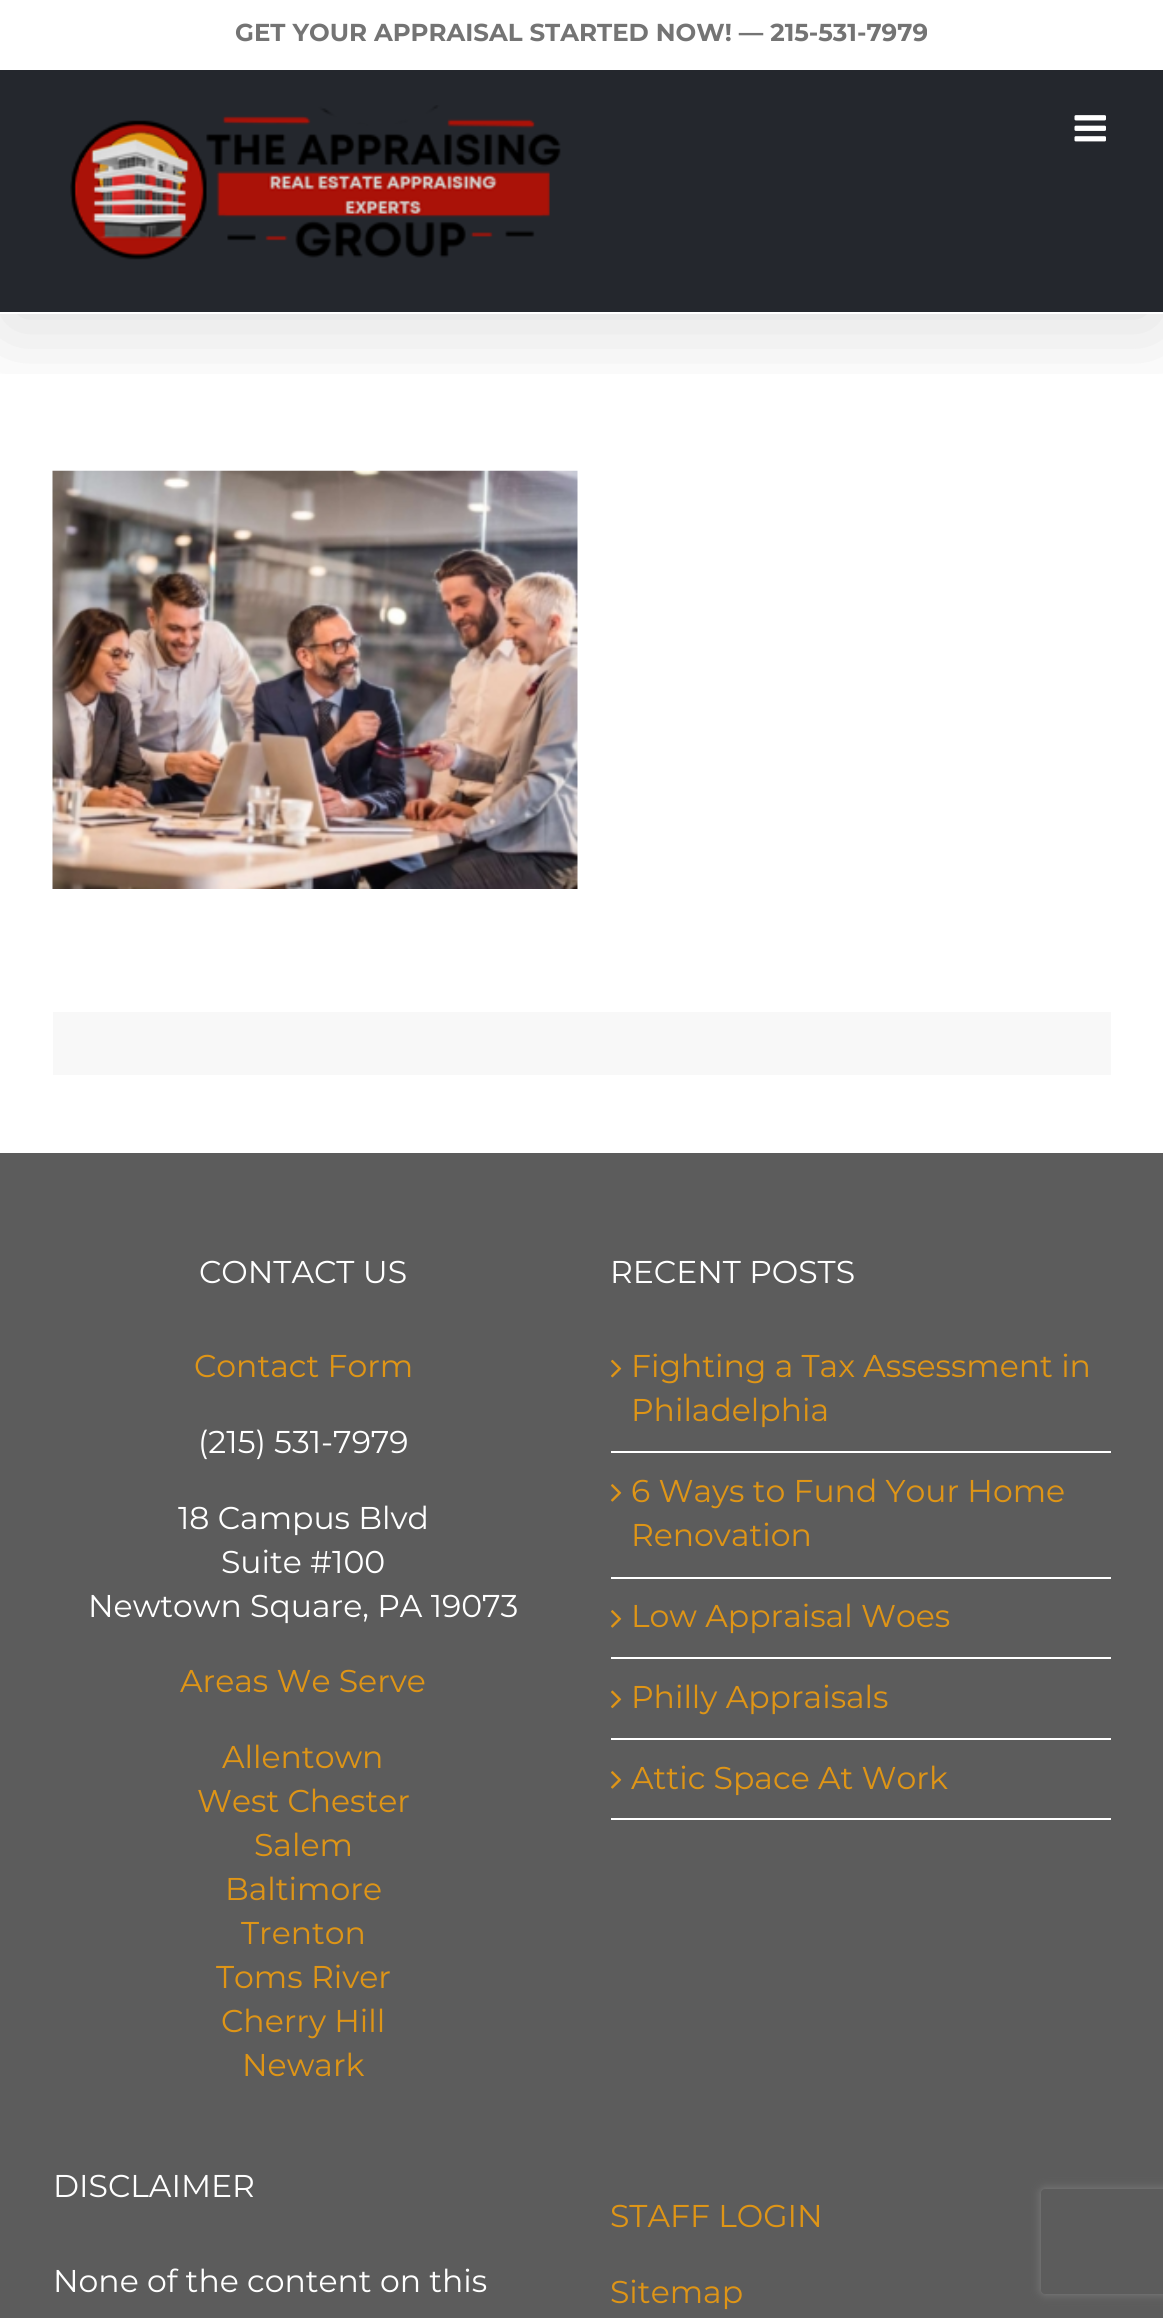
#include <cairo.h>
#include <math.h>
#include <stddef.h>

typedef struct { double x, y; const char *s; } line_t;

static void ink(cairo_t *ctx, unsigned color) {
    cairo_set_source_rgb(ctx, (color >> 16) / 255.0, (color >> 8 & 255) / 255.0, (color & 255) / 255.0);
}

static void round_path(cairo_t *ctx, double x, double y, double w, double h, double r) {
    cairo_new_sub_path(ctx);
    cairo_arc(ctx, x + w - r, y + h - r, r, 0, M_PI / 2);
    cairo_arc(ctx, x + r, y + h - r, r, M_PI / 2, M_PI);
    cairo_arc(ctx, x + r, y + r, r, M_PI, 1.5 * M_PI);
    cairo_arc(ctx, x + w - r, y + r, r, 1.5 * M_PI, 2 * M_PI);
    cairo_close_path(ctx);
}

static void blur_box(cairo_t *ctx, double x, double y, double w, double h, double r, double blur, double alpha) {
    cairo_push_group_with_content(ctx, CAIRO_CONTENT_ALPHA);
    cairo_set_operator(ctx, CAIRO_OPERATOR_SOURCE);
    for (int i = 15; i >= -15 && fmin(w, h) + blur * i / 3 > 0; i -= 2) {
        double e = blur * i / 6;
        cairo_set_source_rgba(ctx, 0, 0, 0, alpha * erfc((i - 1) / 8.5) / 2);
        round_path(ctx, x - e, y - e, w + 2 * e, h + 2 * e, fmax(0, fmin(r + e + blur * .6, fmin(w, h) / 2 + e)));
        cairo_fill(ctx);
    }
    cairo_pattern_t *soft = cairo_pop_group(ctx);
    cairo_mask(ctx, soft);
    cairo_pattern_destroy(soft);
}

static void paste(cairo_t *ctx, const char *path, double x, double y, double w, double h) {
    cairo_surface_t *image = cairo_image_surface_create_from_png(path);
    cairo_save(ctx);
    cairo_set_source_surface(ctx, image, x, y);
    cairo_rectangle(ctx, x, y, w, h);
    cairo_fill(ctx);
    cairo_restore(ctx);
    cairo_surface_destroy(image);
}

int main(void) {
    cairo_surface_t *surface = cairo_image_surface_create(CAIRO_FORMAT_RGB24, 1163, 2318);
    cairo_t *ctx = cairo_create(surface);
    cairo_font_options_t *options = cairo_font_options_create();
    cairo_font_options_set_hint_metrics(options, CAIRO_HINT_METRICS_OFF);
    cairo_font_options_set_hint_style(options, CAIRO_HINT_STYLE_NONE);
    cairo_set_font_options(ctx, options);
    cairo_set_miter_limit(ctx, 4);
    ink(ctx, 0xFFFFFF);
    cairo_paint(ctx);
    cairo_save(ctx);
    cairo_rectangle(ctx, 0, 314, 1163, 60);
    cairo_clip(ctx);
    ink(ctx, 0x000000);
    blur_box(ctx, 4, 21, 1156, 306, 0, 44, 0.14);
    cairo_restore(ctx);
    cairo_select_font_face(ctx, "Montserrat", CAIRO_FONT_SLANT_NORMAL, CAIRO_FONT_WEIGHT_BOLD);
    cairo_set_font_size(ctx, 24.5);
    ink(ctx, 0x747474);
    cairo_move_to(ctx, 235, 41);
    cairo_show_text(ctx, "GET YOUR APPRAISAL STARTED NOW! — 215-531-7979");
    ink(ctx, 0x24272D);
    cairo_rectangle(ctx, 0, 70, 1163, 242);
    cairo_fill(ctx);
    ink(ctx, 0xFFFFFF);
    cairo_rectangle(ctx, 0, 313, 1163, 1);
    cairo_fill(ctx);
    paste(ctx, "media/1.png", 70, 105, 491, 155);
    paste(ctx, "media/2.png", 1074, 115, 32, 27);
    paste(ctx, "media/3.png", 52, 470, 526, 419);
    ink(ctx, 0xF8F8F8);
    cairo_rectangle(ctx, 53, 1012, 1058, 63);
    cairo_fill(ctx);
    ink(ctx, 0x5C5C5C);
    cairo_rectangle(ctx, 0, 1153, 1163, 1165);
    cairo_fill(ctx);
    cairo_select_font_face(ctx, "Montserrat", CAIRO_FONT_SLANT_NORMAL, CAIRO_FONT_WEIGHT_NORMAL);
    cairo_set_font_size(ctx, 31.5);
    ink(ctx, 0xFFFFFF);
    cairo_move_to(ctx, 199, 1283);
    cairo_show_text(ctx, "CONTACT US");
    ink(ctx, 0xDF9516);
    cairo_move_to(ctx, 194, 1377);
    cairo_show_text(ctx, "Contact Form");
    ink(ctx, 0xFFFFFF);
    {
        static const line_t items[] = {
            {198, 1453, "(215) 531-7979"},
            {178, 1529, "18 Campus Blvd"},
            {221, 1573, "Suite #100"},
            {88, 1617, "Newtown Square, PA 19073"},
        };
        for (size_t i = 0; i < sizeof items / sizeof *items; i++) {
            cairo_move_to(ctx, items[i].x, items[i].y);
            cairo_show_text(ctx, items[i].s);
        }
    }
    ink(ctx, 0xDF9516);
    {
        static const line_t items[] = {
            {180, 1692, "Areas We Serve"},
            {222, 1768, "Allentown"},
            {197, 1812, "West Chester"},
            {254, 1856, "Salem"},
            {225, 1900, "Baltimore"},
            {241, 1944, "Trenton"},
            {216, 1988, "Toms River"},
            {221, 2032, "Cherry Hill"},
            {242, 2076, "Newark"},
        };
        for (size_t i = 0; i < sizeof items / sizeof *items; i++) {
            cairo_move_to(ctx, items[i].x, items[i].y);
            cairo_show_text(ctx, items[i].s);
        }
    }
    ink(ctx, 0xFFFFFF);
    cairo_move_to(ctx, 610, 1283);
    cairo_show_text(ctx, "RECENT POSTS");
    cairo_rectangle(ctx, 611, 1451, 500, 2);
    cairo_fill(ctx);
    paste(ctx, "media/4.png", 611, 1359, 11, 19);
    ink(ctx, 0xDF9516);
    cairo_move_to(ctx, 631, 1377);
    cairo_show_text(ctx, "Fighting a Tax Assessment in");
    cairo_move_to(ctx, 631, 1421);
    cairo_show_text(ctx, "Philadelphia");
    ink(ctx, 0xFFFFFF);
    cairo_rectangle(ctx, 611, 1577, 500, 2);
    cairo_fill(ctx);
    paste(ctx, "media/5.png", 611, 1484, 11, 18);
    ink(ctx, 0xDF9516);
    cairo_move_to(ctx, 631, 1502);
    cairo_show_text(ctx, "6 Ways to Fund Your Home");
    cairo_move_to(ctx, 631, 1546);
    cairo_show_text(ctx, "Renovation");
    ink(ctx, 0xFFFFFF);
    cairo_rectangle(ctx, 611, 1657, 500, 2);
    cairo_fill(ctx);
    paste(ctx, "media/5.png", 611, 1610, 11, 18);
    ink(ctx, 0xDF9516);
    cairo_move_to(ctx, 631, 1627);
    cairo_show_text(ctx, "Low Appraisal Woes");
    ink(ctx, 0xFFFFFF);
    cairo_rectangle(ctx, 611, 1738, 500, 2);
    cairo_fill(ctx);
    paste(ctx, "media/6.png", 611, 1690, 11, 19);
    ink(ctx, 0xDF9516);
    cairo_move_to(ctx, 631, 1708);
    cairo_show_text(ctx, "Philly Appraisals");
    ink(ctx, 0xFFFFFF);
    cairo_rectangle(ctx, 611, 1818, 500, 2);
    cairo_fill(ctx);
    paste(ctx, "media/5.png", 611, 1771, 11, 18);
    ink(ctx, 0xDF9516);
    cairo_move_to(ctx, 631, 1789);
    cairo_show_text(ctx, "Attic Space At Work");
    ink(ctx, 0xFFFFFF);
    cairo_move_to(ctx, 53, 2197);
    cairo_show_text(ctx, "DISCLAIMER");
    cairo_move_to(ctx, 53, 2292);
    cairo_show_text(ctx, "None of the content on this");
    ink(ctx, 0xDF9516);
    cairo_move_to(ctx, 610, 2227);
    cairo_show_text(ctx, "STAFF LOGIN");
    cairo_move_to(ctx, 610, 2303);
    cairo_show_text(ctx, "Sitemap");
    cairo_save(ctx);
    cairo_set_fill_rule(ctx, CAIRO_FILL_RULE_EVEN_ODD);
    cairo_new_path(ctx);
    cairo_move_to(ctx, 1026, 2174);
    cairo_line_to(ctx, 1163, 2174);
    cairo_line_to(ctx, 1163, 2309);
    cairo_line_to(ctx, 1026, 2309);
    cairo_close_path(ctx);
    cairo_move_to(ctx, 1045, 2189);
    cairo_line_to(ctx, 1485, 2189);
    cairo_curve_to(ctx, 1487, 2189, 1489, 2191, 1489, 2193);
    cairo_line_to(ctx, 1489, 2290);
    cairo_curve_to(ctx, 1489, 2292, 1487, 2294, 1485, 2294);
    cairo_line_to(ctx, 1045, 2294);
    cairo_curve_to(ctx, 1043, 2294, 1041, 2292, 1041, 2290);
    cairo_line_to(ctx, 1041, 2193);
    cairo_curve_to(ctx, 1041, 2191, 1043, 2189, 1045, 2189);
    cairo_close_path(ctx);
    cairo_clip(ctx);
    ink(ctx, 0x808080);
    blur_box(ctx, 1041, 2189, 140, 105, 4, 4.5, 1);
    cairo_restore(ctx);
    cairo_surface_write_to_png(surface, "image.png");
    cairo_font_options_destroy(options);
    cairo_destroy(ctx);
    cairo_surface_destroy(surface);
    return 0;
}
